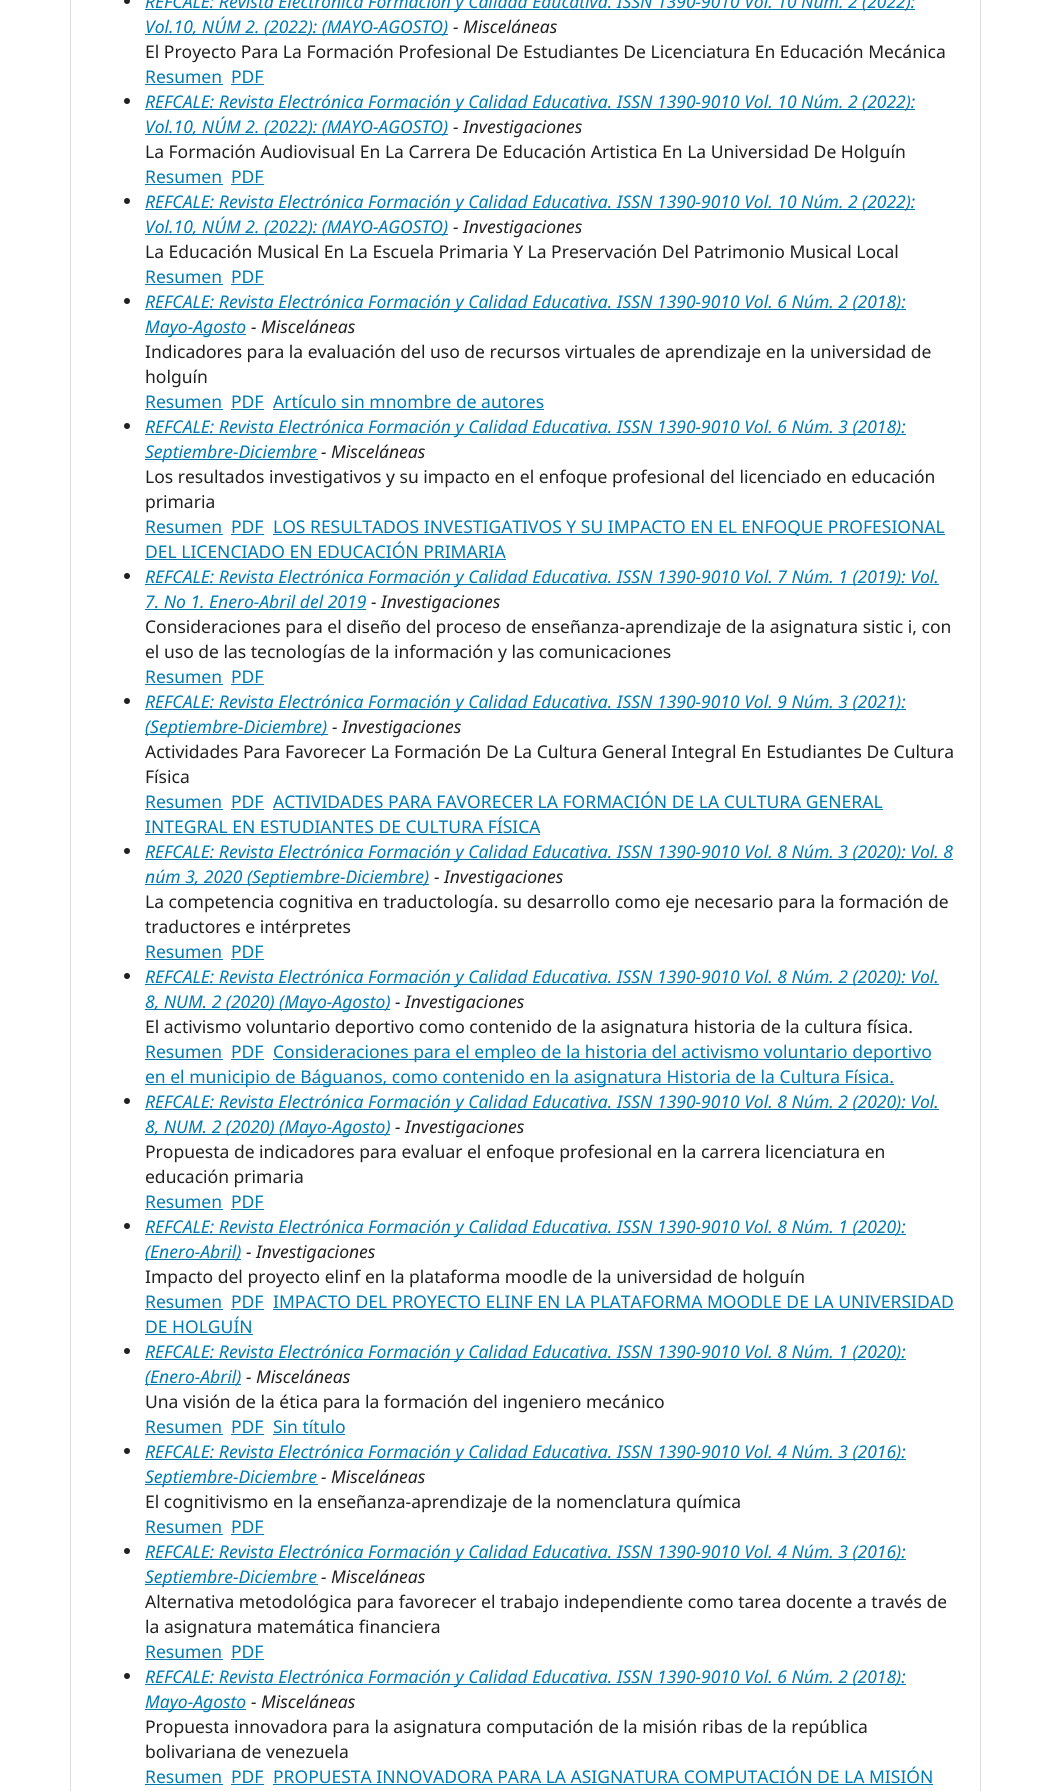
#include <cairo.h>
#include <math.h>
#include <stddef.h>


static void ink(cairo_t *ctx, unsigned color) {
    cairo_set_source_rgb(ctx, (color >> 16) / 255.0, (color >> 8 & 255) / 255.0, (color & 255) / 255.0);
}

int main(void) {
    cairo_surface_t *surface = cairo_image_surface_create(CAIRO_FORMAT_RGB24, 1049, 1791);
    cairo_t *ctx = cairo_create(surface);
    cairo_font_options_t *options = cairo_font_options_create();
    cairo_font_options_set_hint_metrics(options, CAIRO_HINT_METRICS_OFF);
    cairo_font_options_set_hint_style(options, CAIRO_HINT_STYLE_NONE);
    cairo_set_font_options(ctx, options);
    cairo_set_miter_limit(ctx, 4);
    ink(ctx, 0xFFFFFF);
    cairo_paint(ctx);
    ink(ctx, 0xDDDDDD);
    cairo_rectangle(ctx, 70, 0, 1, 1791);
    cairo_fill(ctx);
    ink(ctx, 0x212121);
    cairo_arc(ctx, 127, 1, 3, 0, 2 * M_PI);
    cairo_fill(ctx);
    ink(ctx, 0x007AB2);
    cairo_rectangle(ctx, 145, 9, 770, 1);
    cairo_fill(ctx);
    cairo_select_font_face(ctx, "Noto Sans", CAIRO_FONT_SLANT_ITALIC, CAIRO_FONT_WEIGHT_NORMAL);
    cairo_set_font_size(ctx, 17.5);
    cairo_move_to(ctx, 145, 8);
    cairo_show_text(ctx, "REFCALE: Revista Electrónica Formación y Calidad Educativa. ISSN 1390-9010 Vol. 10 Núm. 2 (2022):");
    cairo_rectangle(ctx, 145, 34, 303, 1);
    cairo_fill(ctx);
    cairo_move_to(ctx, 145, 33);
    cairo_show_text(ctx, "Vol.10, NÚM 2. (2022): (MAYO-AGOSTO)");
    ink(ctx, 0x212121);
    cairo_move_to(ctx, 453, 33);
    cairo_show_text(ctx, "- Misceláneas");
    cairo_select_font_face(ctx, "Noto Sans", CAIRO_FONT_SLANT_NORMAL, CAIRO_FONT_WEIGHT_NORMAL);
    cairo_move_to(ctx, 145, 58);
    cairo_show_text(ctx, "El Proyecto Para La Formación Profesional De Estudiantes De Licenciatura En Educación Mecánica");
    ink(ctx, 0x007AB2);
    cairo_move_to(ctx, 145, 83);
    cairo_show_text(ctx, "Resumen");
    cairo_rectangle(ctx, 145, 84, 78, 1);
    cairo_fill(ctx);
    cairo_move_to(ctx, 231, 83);
    cairo_show_text(ctx, "PDF");
    cairo_rectangle(ctx, 231, 84, 33, 1);
    cairo_fill(ctx);
    ink(ctx, 0x212121);
    cairo_arc(ctx, 127, 101, 3, 0, 2 * M_PI);
    cairo_fill(ctx);
    ink(ctx, 0x007AB2);
    cairo_rectangle(ctx, 145, 109, 770, 1);
    cairo_fill(ctx);
    cairo_select_font_face(ctx, "Noto Sans", CAIRO_FONT_SLANT_ITALIC, CAIRO_FONT_WEIGHT_NORMAL);
    cairo_move_to(ctx, 145, 108);
    cairo_show_text(ctx, "REFCALE: Revista Electrónica Formación y Calidad Educativa. ISSN 1390-9010 Vol. 10 Núm. 2 (2022):");
    cairo_rectangle(ctx, 145, 134, 303, 1);
    cairo_fill(ctx);
    cairo_move_to(ctx, 145, 133);
    cairo_show_text(ctx, "Vol.10, NÚM 2. (2022): (MAYO-AGOSTO)");
    ink(ctx, 0x212121);
    cairo_move_to(ctx, 453, 133);
    cairo_show_text(ctx, "- Investigaciones");
    cairo_select_font_face(ctx, "Noto Sans", CAIRO_FONT_SLANT_NORMAL, CAIRO_FONT_WEIGHT_NORMAL);
    cairo_move_to(ctx, 145, 158);
    cairo_show_text(ctx, "La Formación Audiovisual En La Carrera De Educación Artistica En La Universidad De Holguín");
    ink(ctx, 0x007AB2);
    cairo_move_to(ctx, 145, 183);
    cairo_show_text(ctx, "Resumen");
    cairo_rectangle(ctx, 145, 184, 78, 1);
    cairo_fill(ctx);
    cairo_move_to(ctx, 231, 183);
    cairo_show_text(ctx, "PDF");
    cairo_rectangle(ctx, 231, 184, 33, 1);
    cairo_fill(ctx);
    ink(ctx, 0x212121);
    cairo_arc(ctx, 127, 201, 3, 0, 2 * M_PI);
    cairo_fill(ctx);
    ink(ctx, 0x007AB2);
    cairo_rectangle(ctx, 145, 209, 770, 1);
    cairo_fill(ctx);
    cairo_select_font_face(ctx, "Noto Sans", CAIRO_FONT_SLANT_ITALIC, CAIRO_FONT_WEIGHT_NORMAL);
    cairo_move_to(ctx, 145, 208);
    cairo_show_text(ctx, "REFCALE: Revista Electrónica Formación y Calidad Educativa. ISSN 1390-9010 Vol. 10 Núm. 2 (2022):");
    cairo_rectangle(ctx, 145, 234, 303, 1);
    cairo_fill(ctx);
    cairo_move_to(ctx, 145, 233);
    cairo_show_text(ctx, "Vol.10, NÚM 2. (2022): (MAYO-AGOSTO)");
    ink(ctx, 0x212121);
    cairo_move_to(ctx, 453, 233);
    cairo_show_text(ctx, "- Investigaciones");
    cairo_select_font_face(ctx, "Noto Sans", CAIRO_FONT_SLANT_NORMAL, CAIRO_FONT_WEIGHT_NORMAL);
    cairo_move_to(ctx, 145, 258);
    cairo_show_text(ctx, "La Educación Musical En La Escuela Primaria Y La Preservación Del Patrimonio Musical Local");
    ink(ctx, 0x007AB2);
    cairo_move_to(ctx, 145, 283);
    cairo_show_text(ctx, "Resumen");
    cairo_rectangle(ctx, 145, 284, 78, 1);
    cairo_fill(ctx);
    cairo_move_to(ctx, 231, 283);
    cairo_show_text(ctx, "PDF");
    cairo_rectangle(ctx, 231, 284, 33, 1);
    cairo_fill(ctx);
    ink(ctx, 0x212121);
    cairo_arc(ctx, 127, 301, 3, 0, 2 * M_PI);
    cairo_fill(ctx);
    ink(ctx, 0x007AB2);
    cairo_rectangle(ctx, 145, 309, 761, 1);
    cairo_fill(ctx);
    cairo_select_font_face(ctx, "Noto Sans", CAIRO_FONT_SLANT_ITALIC, CAIRO_FONT_WEIGHT_NORMAL);
    cairo_move_to(ctx, 145, 308);
    cairo_show_text(ctx, "REFCALE: Revista Electrónica Formación y Calidad Educativa. ISSN 1390-9010 Vol. 6 Núm. 2 (2018):");
    cairo_rectangle(ctx, 145, 334, 101, 1);
    cairo_fill(ctx);
    cairo_move_to(ctx, 145, 333);
    cairo_show_text(ctx, "Mayo-Agosto");
    ink(ctx, 0x212121);
    cairo_move_to(ctx, 251, 333);
    cairo_show_text(ctx, "- Misceláneas");
    cairo_select_font_face(ctx, "Noto Sans", CAIRO_FONT_SLANT_NORMAL, CAIRO_FONT_WEIGHT_NORMAL);
    cairo_move_to(ctx, 145, 358);
    cairo_show_text(ctx, "Indicadores para la evaluación del uso de recursos virtuales de aprendizaje en la universidad de");
    cairo_move_to(ctx, 145, 383);
    cairo_show_text(ctx, "holguín");
    ink(ctx, 0x007AB2);
    cairo_move_to(ctx, 145, 408);
    cairo_show_text(ctx, "Resumen");
    cairo_rectangle(ctx, 145, 409, 78, 1);
    cairo_fill(ctx);
    cairo_move_to(ctx, 231, 408);
    cairo_show_text(ctx, "PDF");
    cairo_rectangle(ctx, 231, 409, 33, 1);
    cairo_fill(ctx);
    cairo_move_to(ctx, 273, 408);
    cairo_show_text(ctx, "Artículo sin mnombre de autores");
    cairo_rectangle(ctx, 273, 409, 271, 1);
    cairo_fill(ctx);
    ink(ctx, 0x212121);
    cairo_arc(ctx, 127, 426, 3, 0, 2 * M_PI);
    cairo_fill(ctx);
    ink(ctx, 0x007AB2);
    cairo_rectangle(ctx, 145, 434, 761, 1);
    cairo_fill(ctx);
    cairo_select_font_face(ctx, "Noto Sans", CAIRO_FONT_SLANT_ITALIC, CAIRO_FONT_WEIGHT_NORMAL);
    cairo_move_to(ctx, 145, 433);
    cairo_show_text(ctx, "REFCALE: Revista Electrónica Formación y Calidad Educativa. ISSN 1390-9010 Vol. 6 Núm. 3 (2018):");
    cairo_rectangle(ctx, 145, 459, 173, 1);
    cairo_fill(ctx);
    cairo_move_to(ctx, 145, 458);
    cairo_show_text(ctx, "Septiembre-Diciembre");
    ink(ctx, 0x212121);
    cairo_move_to(ctx, 321, 458);
    cairo_show_text(ctx, "- Misceláneas");
    cairo_select_font_face(ctx, "Noto Sans", CAIRO_FONT_SLANT_NORMAL, CAIRO_FONT_WEIGHT_NORMAL);
    cairo_move_to(ctx, 145, 483);
    cairo_show_text(ctx, "Los resultados investigativos y su impacto en el enfoque profesional del licenciado en educación");
    cairo_move_to(ctx, 145, 508);
    cairo_show_text(ctx, "primaria");
    ink(ctx, 0x007AB2);
    cairo_move_to(ctx, 145, 533);
    cairo_show_text(ctx, "Resumen");
    cairo_rectangle(ctx, 145, 534, 78, 1);
    cairo_fill(ctx);
    cairo_move_to(ctx, 231, 533);
    cairo_show_text(ctx, "PDF");
    cairo_rectangle(ctx, 231, 534, 33, 1);
    cairo_fill(ctx);
    cairo_rectangle(ctx, 273, 534, 672, 1);
    cairo_fill(ctx);
    cairo_move_to(ctx, 273, 533);
    cairo_show_text(ctx, "LOS RESULTADOS INVESTIGATIVOS Y SU IMPACTO EN EL ENFOQUE PROFESIONAL");
    cairo_move_to(ctx, 145, 558);
    cairo_show_text(ctx, "DEL LICENCIADO EN EDUCACIÓN PRIMARIA");
    cairo_rectangle(ctx, 145, 559, 361, 1);
    cairo_fill(ctx);
    ink(ctx, 0x212121);
    cairo_arc(ctx, 127, 576, 3, 0, 2 * M_PI);
    cairo_fill(ctx);
    ink(ctx, 0x007AB2);
    cairo_rectangle(ctx, 145, 584, 794, 1);
    cairo_fill(ctx);
    cairo_select_font_face(ctx, "Noto Sans", CAIRO_FONT_SLANT_ITALIC, CAIRO_FONT_WEIGHT_NORMAL);
    cairo_move_to(ctx, 145, 583);
    cairo_show_text(ctx, "REFCALE: Revista Electrónica Formación y Calidad Educativa. ISSN 1390-9010 Vol. 7 Núm. 1 (2019): Vol.");
    cairo_move_to(ctx, 145, 608);
    cairo_show_text(ctx, "7. No 1. Enero-Abril del 2019");
    cairo_rectangle(ctx, 145, 609, 221, 1);
    cairo_fill(ctx);
    ink(ctx, 0x212121);
    cairo_move_to(ctx, 371, 608);
    cairo_show_text(ctx, "- Investigaciones");
    cairo_select_font_face(ctx, "Noto Sans", CAIRO_FONT_SLANT_NORMAL, CAIRO_FONT_WEIGHT_NORMAL);
    cairo_move_to(ctx, 145, 633);
    cairo_show_text(ctx, "Consideraciones para el diseño del proceso de enseñanza-aprendizaje de la asignatura sistic i, con");
    cairo_move_to(ctx, 145, 658);
    cairo_show_text(ctx, "el uso de las tecnologías de la información y las comunicaciones");
    ink(ctx, 0x007AB2);
    cairo_move_to(ctx, 145, 683);
    cairo_show_text(ctx, "Resumen");
    cairo_rectangle(ctx, 145, 684, 78, 1);
    cairo_fill(ctx);
    cairo_move_to(ctx, 231, 683);
    cairo_show_text(ctx, "PDF");
    cairo_rectangle(ctx, 231, 684, 33, 1);
    cairo_fill(ctx);
    ink(ctx, 0x212121);
    cairo_arc(ctx, 127, 701, 3, 0, 2 * M_PI);
    cairo_fill(ctx);
    ink(ctx, 0x007AB2);
    cairo_rectangle(ctx, 145, 709, 761, 1);
    cairo_fill(ctx);
    cairo_select_font_face(ctx, "Noto Sans", CAIRO_FONT_SLANT_ITALIC, CAIRO_FONT_WEIGHT_NORMAL);
    cairo_move_to(ctx, 145, 708);
    cairo_show_text(ctx, "REFCALE: Revista Electrónica Formación y Calidad Educativa. ISSN 1390-9010 Vol. 9 Núm. 3 (2021):");
    cairo_rectangle(ctx, 145, 734, 183, 1);
    cairo_fill(ctx);
    cairo_move_to(ctx, 145, 733);
    cairo_show_text(ctx, "(Septiembre-Diciembre)");
    ink(ctx, 0x212121);
    cairo_move_to(ctx, 332, 733);
    cairo_show_text(ctx, "- Investigaciones");
    cairo_select_font_face(ctx, "Noto Sans", CAIRO_FONT_SLANT_NORMAL, CAIRO_FONT_WEIGHT_NORMAL);
    cairo_move_to(ctx, 145, 758);
    cairo_show_text(ctx, "Actividades Para Favorecer La Formación De La Cultura General Integral En Estudiantes De Cultura");
    cairo_move_to(ctx, 145, 783);
    cairo_show_text(ctx, "Física");
    ink(ctx, 0x007AB2);
    cairo_move_to(ctx, 145, 808);
    cairo_show_text(ctx, "Resumen");
    cairo_rectangle(ctx, 145, 809, 78, 1);
    cairo_fill(ctx);
    cairo_move_to(ctx, 231, 808);
    cairo_show_text(ctx, "PDF");
    cairo_rectangle(ctx, 231, 809, 33, 1);
    cairo_fill(ctx);
    cairo_move_to(ctx, 273, 808);
    cairo_show_text(ctx, "ACTIVIDADES PARA FAVORECER LA FORMACIÓN DE LA CULTURA GENERAL");
    cairo_rectangle(ctx, 273, 809, 610, 1);
    cairo_fill(ctx);
    cairo_move_to(ctx, 145, 833);
    cairo_show_text(ctx, "INTEGRAL EN ESTUDIANTES DE CULTURA FÍSICA");
    cairo_rectangle(ctx, 145, 834, 395, 1);
    cairo_fill(ctx);
    ink(ctx, 0x212121);
    cairo_arc(ctx, 127, 851, 3, 0, 2 * M_PI);
    cairo_fill(ctx);
    ink(ctx, 0x007AB2);
    cairo_rectangle(ctx, 145, 859, 808, 1);
    cairo_fill(ctx);
    cairo_select_font_face(ctx, "Noto Sans", CAIRO_FONT_SLANT_ITALIC, CAIRO_FONT_WEIGHT_NORMAL);
    cairo_move_to(ctx, 145, 858);
    cairo_show_text(ctx, "REFCALE: Revista Electrónica Formación y Calidad Educativa. ISSN 1390-9010 Vol. 8 Núm. 3 (2020): Vol. 8");
    cairo_rectangle(ctx, 145, 884, 284, 1);
    cairo_fill(ctx);
    cairo_move_to(ctx, 145, 883);
    cairo_show_text(ctx, "núm 3, 2020 (Septiembre-Diciembre)");
    ink(ctx, 0x212121);
    cairo_move_to(ctx, 434, 883);
    cairo_show_text(ctx, "- Investigaciones");
    cairo_select_font_face(ctx, "Noto Sans", CAIRO_FONT_SLANT_NORMAL, CAIRO_FONT_WEIGHT_NORMAL);
    cairo_move_to(ctx, 145, 908);
    cairo_show_text(ctx, "La competencia cognitiva en traductología. su desarrollo como eje necesario para la formación de");
    cairo_move_to(ctx, 145, 933);
    cairo_show_text(ctx, "traductores e intérpretes");
    ink(ctx, 0x007AB2);
    cairo_move_to(ctx, 145, 958);
    cairo_show_text(ctx, "Resumen");
    cairo_rectangle(ctx, 145, 959, 78, 1);
    cairo_fill(ctx);
    cairo_move_to(ctx, 231, 958);
    cairo_show_text(ctx, "PDF");
    cairo_rectangle(ctx, 231, 959, 33, 1);
    cairo_fill(ctx);
    ink(ctx, 0x212121);
    cairo_arc(ctx, 127, 976, 3, 0, 2 * M_PI);
    cairo_fill(ctx);
    ink(ctx, 0x007AB2);
    cairo_rectangle(ctx, 145, 984, 794, 1);
    cairo_fill(ctx);
    cairo_select_font_face(ctx, "Noto Sans", CAIRO_FONT_SLANT_ITALIC, CAIRO_FONT_WEIGHT_NORMAL);
    cairo_move_to(ctx, 145, 983);
    cairo_show_text(ctx, "REFCALE: Revista Electrónica Formación y Calidad Educativa. ISSN 1390-9010 Vol. 8 Núm. 2 (2020): Vol.");
    cairo_rectangle(ctx, 145, 1009, 245, 1);
    cairo_fill(ctx);
    cairo_move_to(ctx, 145, 1008);
    cairo_show_text(ctx, "8, NUM. 2 (2020) (Mayo-Agosto)");
    ink(ctx, 0x212121);
    cairo_move_to(ctx, 395, 1008);
    cairo_show_text(ctx, "- Investigaciones");
    cairo_select_font_face(ctx, "Noto Sans", CAIRO_FONT_SLANT_NORMAL, CAIRO_FONT_WEIGHT_NORMAL);
    cairo_move_to(ctx, 145, 1033);
    cairo_show_text(ctx, "El activismo voluntario deportivo como contenido de la asignatura historia de la cultura física.");
    ink(ctx, 0x007AB2);
    cairo_move_to(ctx, 145, 1058);
    cairo_show_text(ctx, "Resumen");
    cairo_rectangle(ctx, 145, 1059, 78, 1);
    cairo_fill(ctx);
    cairo_move_to(ctx, 231, 1058);
    cairo_show_text(ctx, "PDF");
    cairo_rectangle(ctx, 231, 1059, 33, 1);
    cairo_fill(ctx);
    cairo_rectangle(ctx, 273, 1059, 658, 1);
    cairo_fill(ctx);
    cairo_move_to(ctx, 273, 1058);
    cairo_show_text(ctx, "Consideraciones para el empleo de la historia del activismo voluntario deportivo");
    cairo_rectangle(ctx, 145, 1084, 749, 1);
    cairo_fill(ctx);
    cairo_move_to(ctx, 145, 1083);
    cairo_show_text(ctx, "en el municipio de Báguanos, como contenido en la asignatura Historia de la Cultura Física.");
    ink(ctx, 0x212121);
    cairo_new_path(ctx);
    cairo_arc(ctx, 127, 1101, 3, 0, 2 * M_PI);
    cairo_fill(ctx);
    ink(ctx, 0x007AB2);
    cairo_rectangle(ctx, 145, 1109, 794, 1);
    cairo_fill(ctx);
    cairo_select_font_face(ctx, "Noto Sans", CAIRO_FONT_SLANT_ITALIC, CAIRO_FONT_WEIGHT_NORMAL);
    cairo_move_to(ctx, 145, 1108);
    cairo_show_text(ctx, "REFCALE: Revista Electrónica Formación y Calidad Educativa. ISSN 1390-9010 Vol. 8 Núm. 2 (2020): Vol.");
    cairo_rectangle(ctx, 145, 1134, 245, 1);
    cairo_fill(ctx);
    cairo_move_to(ctx, 145, 1133);
    cairo_show_text(ctx, "8, NUM. 2 (2020) (Mayo-Agosto)");
    ink(ctx, 0x212121);
    cairo_move_to(ctx, 395, 1133);
    cairo_show_text(ctx, "- Investigaciones");
    cairo_select_font_face(ctx, "Noto Sans", CAIRO_FONT_SLANT_NORMAL, CAIRO_FONT_WEIGHT_NORMAL);
    cairo_move_to(ctx, 145, 1158);
    cairo_show_text(ctx, "Propuesta de indicadores para evaluar el enfoque profesional en la carrera licenciatura en");
    cairo_move_to(ctx, 145, 1183);
    cairo_show_text(ctx, "educación primaria");
    ink(ctx, 0x007AB2);
    cairo_move_to(ctx, 145, 1208);
    cairo_show_text(ctx, "Resumen");
    cairo_rectangle(ctx, 145, 1209, 78, 1);
    cairo_fill(ctx);
    cairo_move_to(ctx, 231, 1208);
    cairo_show_text(ctx, "PDF");
    cairo_rectangle(ctx, 231, 1209, 33, 1);
    cairo_fill(ctx);
    ink(ctx, 0x212121);
    cairo_arc(ctx, 127, 1226, 3, 0, 2 * M_PI);
    cairo_fill(ctx);
    ink(ctx, 0x007AB2);
    cairo_rectangle(ctx, 145, 1234, 761, 1);
    cairo_fill(ctx);
    cairo_select_font_face(ctx, "Noto Sans", CAIRO_FONT_SLANT_ITALIC, CAIRO_FONT_WEIGHT_NORMAL);
    cairo_move_to(ctx, 145, 1233);
    cairo_show_text(ctx, "REFCALE: Revista Electrónica Formación y Calidad Educativa. ISSN 1390-9010 Vol. 8 Núm. 1 (2020):");
    cairo_rectangle(ctx, 145, 1259, 96, 1);
    cairo_fill(ctx);
    cairo_move_to(ctx, 145, 1258);
    cairo_show_text(ctx, "(Enero-Abril)");
    ink(ctx, 0x212121);
    cairo_move_to(ctx, 246, 1258);
    cairo_show_text(ctx, "- Investigaciones");
    cairo_select_font_face(ctx, "Noto Sans", CAIRO_FONT_SLANT_NORMAL, CAIRO_FONT_WEIGHT_NORMAL);
    cairo_move_to(ctx, 145, 1283);
    cairo_show_text(ctx, "Impacto del proyecto elinf en la plataforma moodle de la universidad de holguín");
    ink(ctx, 0x007AB2);
    cairo_move_to(ctx, 145, 1308);
    cairo_show_text(ctx, "Resumen");
    cairo_rectangle(ctx, 145, 1309, 78, 1);
    cairo_fill(ctx);
    cairo_move_to(ctx, 231, 1308);
    cairo_show_text(ctx, "PDF");
    cairo_rectangle(ctx, 231, 1309, 33, 1);
    cairo_fill(ctx);
    cairo_move_to(ctx, 273, 1308);
    cairo_show_text(ctx, "IMPACTO DEL PROYECTO ELINF EN LA PLATAFORMA MOODLE DE LA UNIVERSIDAD");
    cairo_rectangle(ctx, 273, 1309, 681, 1);
    cairo_fill(ctx);
    cairo_move_to(ctx, 145, 1333);
    cairo_show_text(ctx, "DE HOLGUÍN");
    cairo_rectangle(ctx, 145, 1334, 108, 1);
    cairo_fill(ctx);
    ink(ctx, 0x212121);
    cairo_arc(ctx, 127, 1351, 3, 0, 2 * M_PI);
    cairo_fill(ctx);
    ink(ctx, 0x007AB2);
    cairo_rectangle(ctx, 145, 1359, 761, 1);
    cairo_fill(ctx);
    cairo_select_font_face(ctx, "Noto Sans", CAIRO_FONT_SLANT_ITALIC, CAIRO_FONT_WEIGHT_NORMAL);
    cairo_move_to(ctx, 145, 1358);
    cairo_show_text(ctx, "REFCALE: Revista Electrónica Formación y Calidad Educativa. ISSN 1390-9010 Vol. 8 Núm. 1 (2020):");
    cairo_rectangle(ctx, 145, 1384, 96, 1);
    cairo_fill(ctx);
    cairo_move_to(ctx, 145, 1383);
    cairo_show_text(ctx, "(Enero-Abril)");
    ink(ctx, 0x212121);
    cairo_move_to(ctx, 246, 1383);
    cairo_show_text(ctx, "- Misceláneas");
    cairo_select_font_face(ctx, "Noto Sans", CAIRO_FONT_SLANT_NORMAL, CAIRO_FONT_WEIGHT_NORMAL);
    cairo_move_to(ctx, 145, 1408);
    cairo_show_text(ctx, "Una visión de la ética para la formación del ingeniero mecánico");
    ink(ctx, 0x007AB2);
    cairo_move_to(ctx, 145, 1433);
    cairo_show_text(ctx, "Resumen");
    cairo_rectangle(ctx, 145, 1434, 78, 1);
    cairo_fill(ctx);
    cairo_move_to(ctx, 231, 1433);
    cairo_show_text(ctx, "PDF");
    cairo_rectangle(ctx, 231, 1434, 33, 1);
    cairo_fill(ctx);
    cairo_move_to(ctx, 273, 1433);
    cairo_show_text(ctx, "Sin título");
    cairo_rectangle(ctx, 273, 1434, 72, 1);
    cairo_fill(ctx);
    ink(ctx, 0x212121);
    cairo_arc(ctx, 127, 1451, 3, 0, 2 * M_PI);
    cairo_fill(ctx);
    ink(ctx, 0x007AB2);
    cairo_rectangle(ctx, 145, 1459, 761, 1);
    cairo_fill(ctx);
    cairo_select_font_face(ctx, "Noto Sans", CAIRO_FONT_SLANT_ITALIC, CAIRO_FONT_WEIGHT_NORMAL);
    cairo_move_to(ctx, 145, 1458);
    cairo_show_text(ctx, "REFCALE: Revista Electrónica Formación y Calidad Educativa. ISSN 1390-9010 Vol. 4 Núm. 3 (2016):");
    cairo_rectangle(ctx, 145, 1484, 173, 1);
    cairo_fill(ctx);
    cairo_move_to(ctx, 145, 1483);
    cairo_show_text(ctx, "Septiembre-Diciembre");
    ink(ctx, 0x212121);
    cairo_move_to(ctx, 321, 1483);
    cairo_show_text(ctx, "- Misceláneas");
    cairo_select_font_face(ctx, "Noto Sans", CAIRO_FONT_SLANT_NORMAL, CAIRO_FONT_WEIGHT_NORMAL);
    cairo_move_to(ctx, 145, 1508);
    cairo_show_text(ctx, "El cognitivismo en la enseñanza-aprendizaje de la nomenclatura química");
    ink(ctx, 0x007AB2);
    cairo_move_to(ctx, 145, 1533);
    cairo_show_text(ctx, "Resumen");
    cairo_rectangle(ctx, 145, 1534, 78, 1);
    cairo_fill(ctx);
    cairo_move_to(ctx, 231, 1533);
    cairo_show_text(ctx, "PDF");
    cairo_rectangle(ctx, 231, 1534, 33, 1);
    cairo_fill(ctx);
    ink(ctx, 0x212121);
    cairo_arc(ctx, 127, 1551, 3, 0, 2 * M_PI);
    cairo_fill(ctx);
    ink(ctx, 0x007AB2);
    cairo_rectangle(ctx, 145, 1559, 761, 1);
    cairo_fill(ctx);
    cairo_select_font_face(ctx, "Noto Sans", CAIRO_FONT_SLANT_ITALIC, CAIRO_FONT_WEIGHT_NORMAL);
    cairo_move_to(ctx, 145, 1558);
    cairo_show_text(ctx, "REFCALE: Revista Electrónica Formación y Calidad Educativa. ISSN 1390-9010 Vol. 4 Núm. 3 (2016):");
    cairo_rectangle(ctx, 145, 1584, 173, 1);
    cairo_fill(ctx);
    cairo_move_to(ctx, 145, 1583);
    cairo_show_text(ctx, "Septiembre-Diciembre");
    ink(ctx, 0x212121);
    cairo_move_to(ctx, 321, 1583);
    cairo_show_text(ctx, "- Misceláneas");
    cairo_select_font_face(ctx, "Noto Sans", CAIRO_FONT_SLANT_NORMAL, CAIRO_FONT_WEIGHT_NORMAL);
    cairo_move_to(ctx, 145, 1608);
    cairo_show_text(ctx, "Alternativa metodológica para favorecer el trabajo independiente como tarea docente a través de");
    cairo_move_to(ctx, 145, 1633);
    cairo_show_text(ctx, "la asignatura matemática financiera");
    ink(ctx, 0x007AB2);
    cairo_move_to(ctx, 145, 1658);
    cairo_show_text(ctx, "Resumen");
    cairo_rectangle(ctx, 145, 1659, 78, 1);
    cairo_fill(ctx);
    cairo_move_to(ctx, 231, 1658);
    cairo_show_text(ctx, "PDF");
    cairo_rectangle(ctx, 231, 1659, 33, 1);
    cairo_fill(ctx);
    ink(ctx, 0x212121);
    cairo_arc(ctx, 127, 1676, 3, 0, 2 * M_PI);
    cairo_fill(ctx);
    ink(ctx, 0x007AB2);
    cairo_rectangle(ctx, 145, 1684, 761, 1);
    cairo_fill(ctx);
    cairo_select_font_face(ctx, "Noto Sans", CAIRO_FONT_SLANT_ITALIC, CAIRO_FONT_WEIGHT_NORMAL);
    cairo_move_to(ctx, 145, 1683);
    cairo_show_text(ctx, "REFCALE: Revista Electrónica Formación y Calidad Educativa. ISSN 1390-9010 Vol. 6 Núm. 2 (2018):");
    cairo_rectangle(ctx, 145, 1709, 101, 1);
    cairo_fill(ctx);
    cairo_move_to(ctx, 145, 1708);
    cairo_show_text(ctx, "Mayo-Agosto");
    ink(ctx, 0x212121);
    cairo_move_to(ctx, 251, 1708);
    cairo_show_text(ctx, "- Misceláneas");
    cairo_select_font_face(ctx, "Noto Sans", CAIRO_FONT_SLANT_NORMAL, CAIRO_FONT_WEIGHT_NORMAL);
    cairo_move_to(ctx, 145, 1733);
    cairo_show_text(ctx, "Propuesta innovadora para la asignatura computación de la misión ribas de la república");
    cairo_move_to(ctx, 145, 1758);
    cairo_show_text(ctx, "bolivariana de venezuela");
    ink(ctx, 0x007AB2);
    cairo_move_to(ctx, 145, 1783);
    cairo_show_text(ctx, "Resumen");
    cairo_rectangle(ctx, 145, 1784, 78, 1);
    cairo_fill(ctx);
    cairo_move_to(ctx, 231, 1783);
    cairo_show_text(ctx, "PDF");
    cairo_rectangle(ctx, 231, 1784, 33, 1);
    cairo_fill(ctx);
    cairo_move_to(ctx, 273, 1783);
    cairo_show_text(ctx, "PROPUESTA INNOVADORA PARA LA ASIGNATURA COMPUTACIÓN DE LA MISIÓN");
    cairo_rectangle(ctx, 273, 1784, 660, 1);
    cairo_fill(ctx);
    ink(ctx, 0xDDDDDD);
    cairo_rectangle(ctx, 980, 0, 1, 1791);
    cairo_fill(ctx);
    cairo_surface_write_to_png(surface, "image.png");
    cairo_font_options_destroy(options);
    cairo_destroy(ctx);
    cairo_surface_destroy(surface);
    return 0;
}
